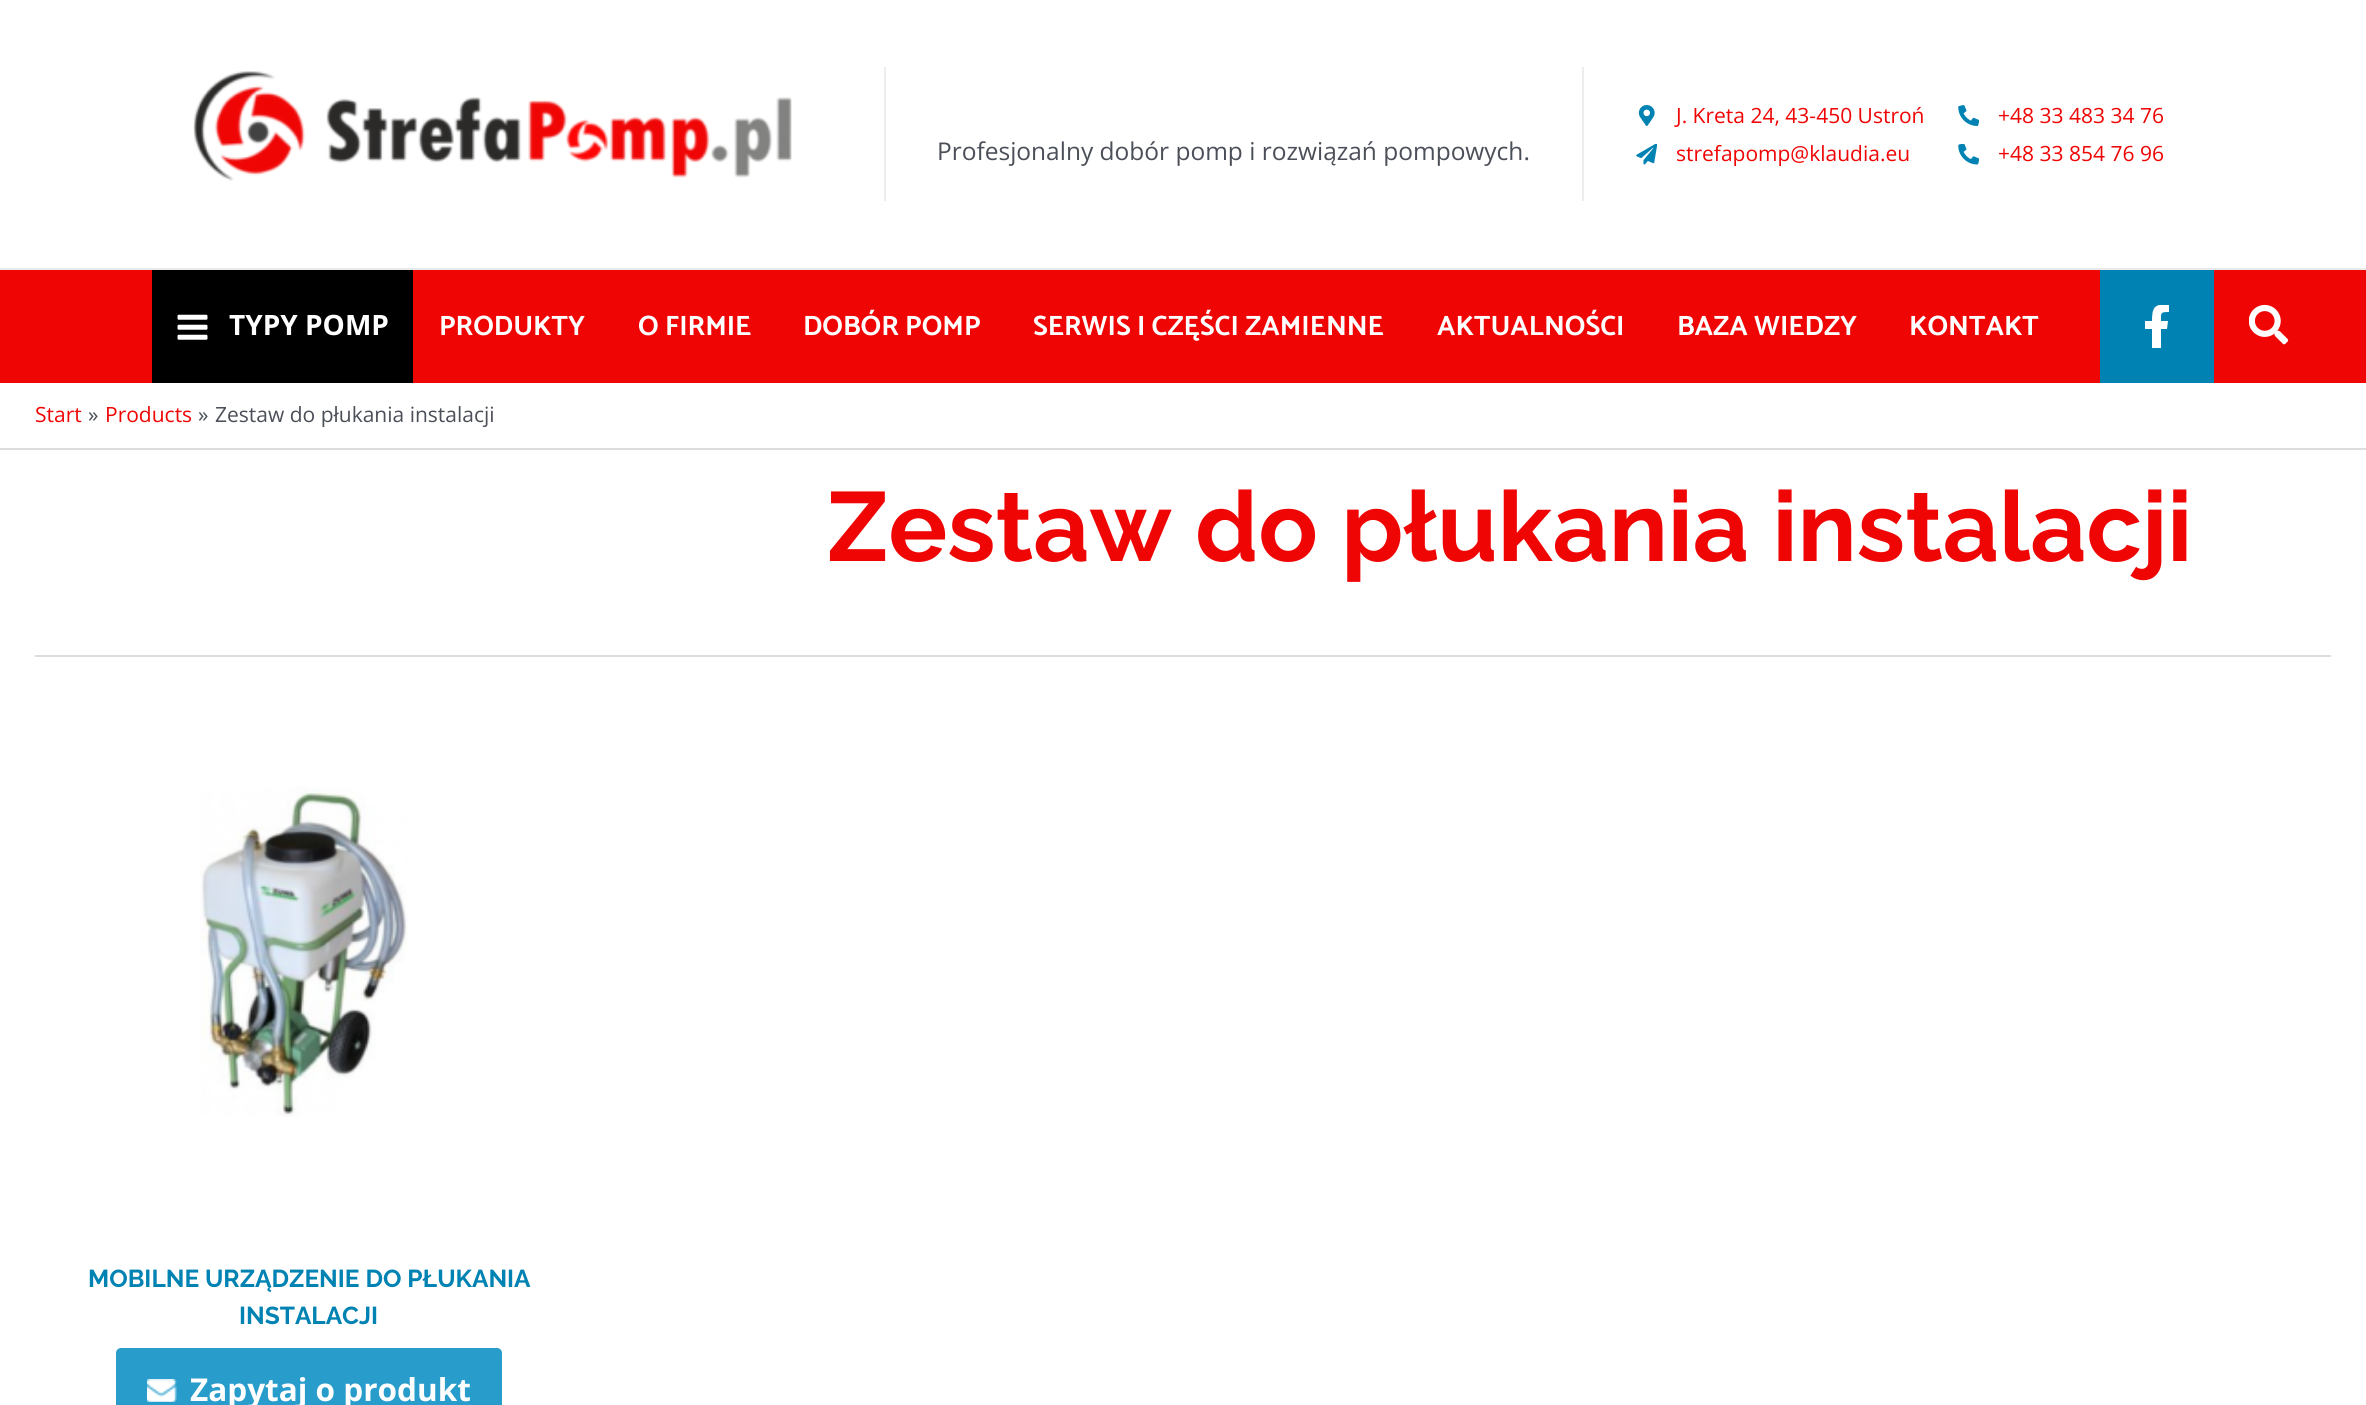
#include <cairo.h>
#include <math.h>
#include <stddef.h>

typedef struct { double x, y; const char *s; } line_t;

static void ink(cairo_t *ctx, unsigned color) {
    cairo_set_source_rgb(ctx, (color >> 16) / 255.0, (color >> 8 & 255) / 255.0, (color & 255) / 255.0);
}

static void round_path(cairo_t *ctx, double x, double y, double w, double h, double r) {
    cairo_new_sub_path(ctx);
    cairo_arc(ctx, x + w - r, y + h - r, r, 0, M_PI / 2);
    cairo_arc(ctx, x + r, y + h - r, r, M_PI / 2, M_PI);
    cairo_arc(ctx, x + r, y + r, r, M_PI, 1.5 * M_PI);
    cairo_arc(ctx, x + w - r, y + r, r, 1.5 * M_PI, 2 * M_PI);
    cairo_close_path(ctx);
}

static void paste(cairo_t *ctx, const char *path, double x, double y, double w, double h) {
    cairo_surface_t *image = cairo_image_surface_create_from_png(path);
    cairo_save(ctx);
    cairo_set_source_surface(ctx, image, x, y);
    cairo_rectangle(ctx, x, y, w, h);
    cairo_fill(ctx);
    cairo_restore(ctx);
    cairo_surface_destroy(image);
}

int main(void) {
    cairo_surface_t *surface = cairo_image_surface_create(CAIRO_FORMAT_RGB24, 2366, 1405);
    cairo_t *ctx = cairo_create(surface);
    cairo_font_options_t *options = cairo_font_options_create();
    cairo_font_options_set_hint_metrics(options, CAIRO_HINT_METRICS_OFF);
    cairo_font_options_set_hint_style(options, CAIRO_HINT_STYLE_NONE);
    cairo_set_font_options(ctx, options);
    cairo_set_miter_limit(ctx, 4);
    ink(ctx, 0xFFFFFF);
    cairo_paint(ctx);
    ink(ctx, 0xEAEAEA);
    cairo_rectangle(ctx, 0, 268, 2366, 2);
    cairo_fill(ctx);
    paste(ctx, "media/1.png", 193, 71, 599, 110);
    ink(ctx, 0xEDEDED);
    cairo_rectangle(ctx, 884, 67, 2, 134);
    cairo_fill(ctx);
    cairo_select_font_face(ctx, "Open Sans", CAIRO_FONT_SLANT_NORMAL, CAIRO_FONT_WEIGHT_NORMAL);
    cairo_set_font_size(ctx, 24.5);
    ink(ctx, 0x4B4F58);
    cairo_move_to(ctx, 937, 160);
    cairo_show_text(ctx, "Profesjonalny dobór pomp i rozwiązań pompowych.");
    ink(ctx, 0xEDEDED);
    cairo_rectangle(ctx, 1582, 67, 2, 134);
    cairo_fill(ctx);
    paste(ctx, "media/2.png", 1638, 105, 17, 21);
    cairo_set_font_size(ctx, 21);
    ink(ctx, 0xF00505);
    cairo_move_to(ctx, 1676, 123);
    cairo_show_text(ctx, "J. Kreta 24, 43-450 Ustroń");
    paste(ctx, "media/3.png", 1636, 144, 21, 21);
    cairo_move_to(ctx, 1676, 161);
    cairo_show_text(ctx, "strefapomp@klaudia.eu");
    paste(ctx, "media/4.png", 1958, 105, 21, 21);
    cairo_move_to(ctx, 1998, 123);
    cairo_show_text(ctx, "+48 33 483 34 76");
    paste(ctx, "media/5.png", 1958, 144, 21, 21);
    cairo_move_to(ctx, 1998, 161);
    cairo_show_text(ctx, "+48 33 854 76 96");
    cairo_rectangle(ctx, 0, 270, 2366, 113);
    cairo_fill(ctx);
    ink(ctx, 0x000000);
    cairo_rectangle(ctx, 152, 270, 261, 113);
    cairo_fill(ctx);
    paste(ctx, "media/6.png", 177, 314, 31, 26);
    cairo_select_font_face(ctx, "Open Sans", CAIRO_FONT_SLANT_NORMAL, CAIRO_FONT_WEIGHT_BOLD);
    cairo_set_font_size(ctx, 28);
    ink(ctx, 0xFFFFFF);
    cairo_move_to(ctx, 229, 335);
    cairo_show_text(ctx, "TYPY POMP");
    cairo_select_font_face(ctx, "Catamaran Thin", CAIRO_FONT_SLANT_NORMAL, CAIRO_FONT_WEIGHT_NORMAL);
    {
        static const line_t items[] = {
            {439, 335, "PRODUKTY"},
            {638, 335, "O FIRMIE"},
            {803, 335, "DOBÓR POMP"},
            {1033, 335, "SERWIS I CZĘŚCI ZAMIENNE"},
            {1437, 335, "AKTUALNOŚCI"},
            {1677, 335, "BAZA WIEDZY"},
            {1909, 335, "KONTAKT"},
        };
        for (size_t i = 0; i < sizeof items / sizeof *items; i++) {
            cairo_move_to(ctx, items[i].x, items[i].y);
            cairo_show_text(ctx, items[i].s);
        }
    }
    ink(ctx, 0x0083B2);
    cairo_rectangle(ctx, 2100, 270, 114, 113);
    cairo_fill(ctx);
    cairo_save(ctx);
    cairo_rectangle(ctx, 2135, 305, 44, 43);
    cairo_clip(ctx);
    ink(ctx, 0xFFFFFF);
    cairo_new_path(ctx);
    cairo_move_to(ctx, 2167, 329);
    cairo_line_to(ctx, 2168, 321);
    cairo_line_to(ctx, 2161, 321);
    cairo_curve_to(ctx, 2161, 313, 2160, 312, 2169, 312);
    cairo_line_to(ctx, 2169, 305);
    cairo_curve_to(ctx, 2154, 303, 2152, 308, 2152, 321);
    cairo_line_to(ctx, 2145, 321);
    cairo_line_to(ctx, 2145, 329);
    cairo_line_to(ctx, 2152, 329);
    cairo_line_to(ctx, 2152, 348);
    cairo_line_to(ctx, 2161, 348);
    cairo_line_to(ctx, 2161, 329);
    cairo_close_path(ctx);
    cairo_fill(ctx);
    cairo_restore(ctx);
    paste(ctx, "media/7.png", 2249, 304, 40, 41);
    ink(ctx, 0xDDDDDD);
    cairo_rectangle(ctx, 0, 448, 2366, 2);
    cairo_fill(ctx);
    cairo_select_font_face(ctx, "Open Sans", CAIRO_FONT_SLANT_NORMAL, CAIRO_FONT_WEIGHT_NORMAL);
    cairo_set_font_size(ctx, 21);
    ink(ctx, 0xF00505);
    cairo_move_to(ctx, 35, 422);
    cairo_show_text(ctx, "Start");
    ink(ctx, 0x4B4F58);
    cairo_move_to(ctx, 88, 422);
    cairo_show_text(ctx, "»");
    ink(ctx, 0xF00505);
    cairo_move_to(ctx, 105, 422);
    cairo_show_text(ctx, "Products");
    ink(ctx, 0x4B4F58);
    cairo_move_to(ctx, 198, 422);
    cairo_show_text(ctx, "»");
    cairo_move_to(ctx, 215, 422);
    cairo_show_text(ctx, "Zestaw do płukania instalacji");
    cairo_select_font_face(ctx, "Raleway Thin", CAIRO_FONT_SLANT_NORMAL, CAIRO_FONT_WEIGHT_NORMAL);
    cairo_set_font_size(ctx, 98);
    ink(ctx, 0xF00505);
    cairo_move_to(ctx, 827, 561);
    cairo_show_text(ctx, "Zestaw do płukania instalacji");
    ink(ctx, 0xDDDDDD);
    cairo_rectangle(ctx, 35, 655, 2296, 2);
    cairo_fill(ctx);
    paste(ctx, "media/8.png", 200, 787, 208, 330);
    cairo_set_font_size(ctx, 24.5);
    ink(ctx, 0x0083B2);
    cairo_move_to(ctx, 88, 1287);
    cairo_show_text(ctx, "MOBILNE URZĄDZENIE DO PŁUKANIA");
    cairo_move_to(ctx, 239, 1324);
    cairo_show_text(ctx, "INSTALACJI");
    ink(ctx, 0x289DCC);
    round_path(ctx, 116, 1348, 386, 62, 5);
    cairo_fill(ctx);
    paste(ctx, "media/9.png", 147, 1379, 30, 23);
    cairo_select_font_face(ctx, "Open Sans", CAIRO_FONT_SLANT_NORMAL, CAIRO_FONT_WEIGHT_BOLD);
    cairo_set_font_size(ctx, 31.5);
    ink(ctx, 0xFFFFFF);
    cairo_move_to(ctx, 190, 1401);
    cairo_show_text(ctx, "Zapytaj o produkt");
    cairo_surface_write_to_png(surface, "image.png");
    cairo_font_options_destroy(options);
    cairo_destroy(ctx);
    cairo_surface_destroy(surface);
    return 0;
}
